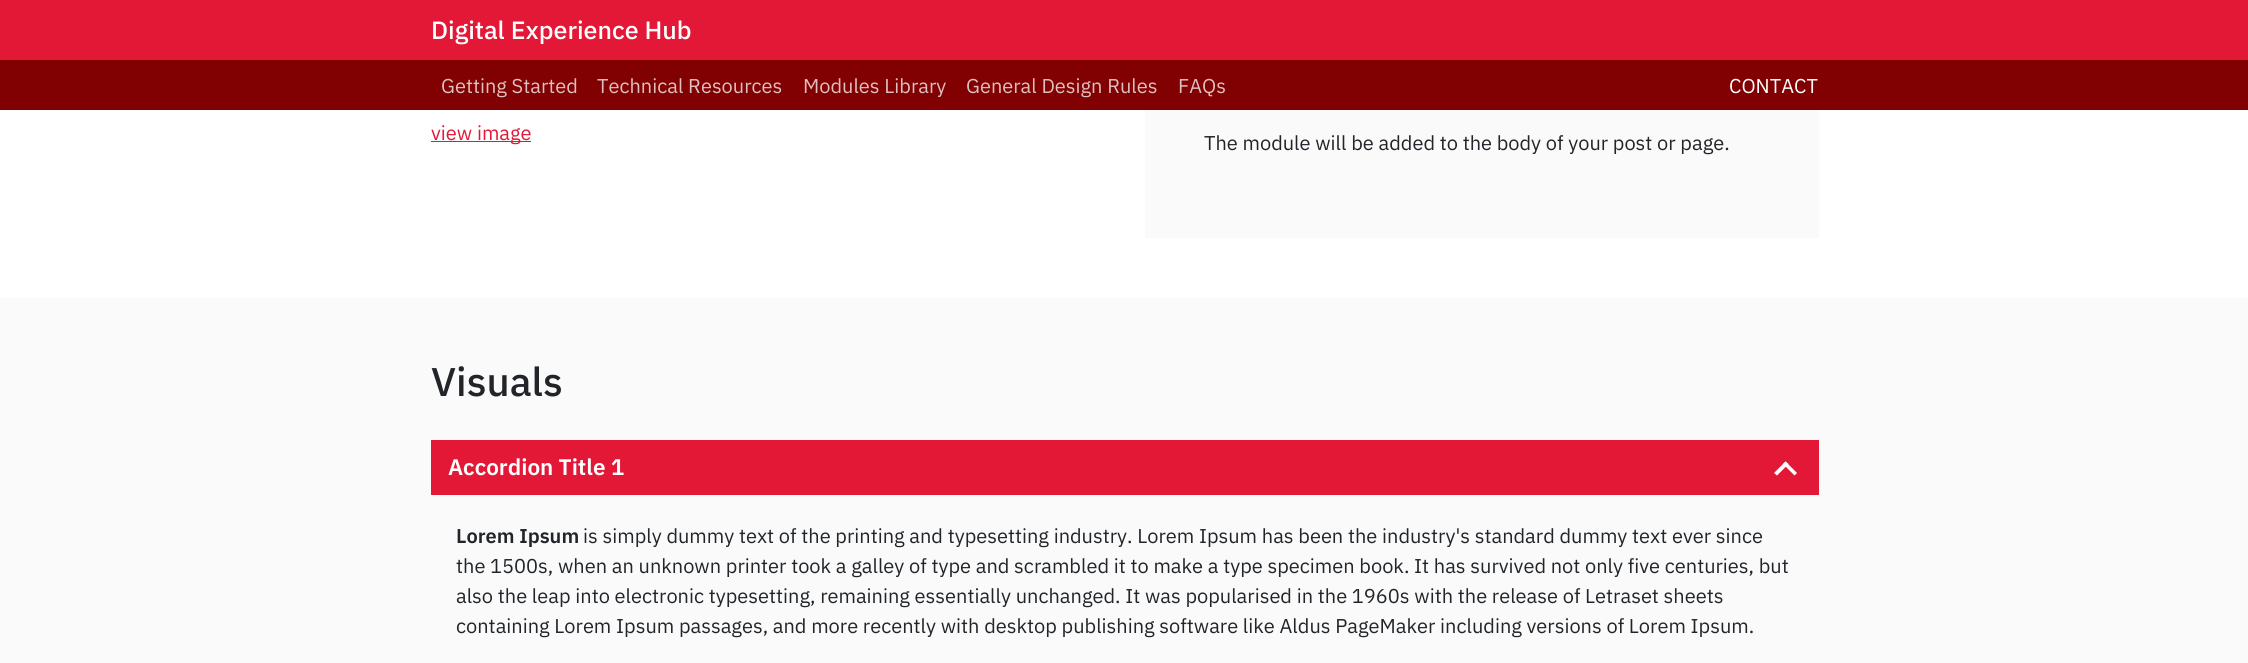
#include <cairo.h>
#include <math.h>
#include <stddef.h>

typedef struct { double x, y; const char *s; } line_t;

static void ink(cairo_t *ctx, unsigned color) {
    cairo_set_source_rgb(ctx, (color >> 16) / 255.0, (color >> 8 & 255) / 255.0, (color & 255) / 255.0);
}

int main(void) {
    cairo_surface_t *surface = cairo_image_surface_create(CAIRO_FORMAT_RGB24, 2248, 663);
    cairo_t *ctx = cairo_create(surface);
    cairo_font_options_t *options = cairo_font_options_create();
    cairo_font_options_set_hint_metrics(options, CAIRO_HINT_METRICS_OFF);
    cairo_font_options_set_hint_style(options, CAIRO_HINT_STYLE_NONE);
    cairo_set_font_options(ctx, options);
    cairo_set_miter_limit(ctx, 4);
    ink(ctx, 0xFFFFFF);
    cairo_paint(ctx);
    ink(ctx, 0xE31837);
    cairo_rectangle(ctx, 0, 0, 2248, 60);
    cairo_fill(ctx);
    cairo_select_font_face(ctx, "IBM Plex Sans Medium", CAIRO_FONT_SLANT_NORMAL, CAIRO_FONT_WEIGHT_NORMAL);
    cairo_set_font_size(ctx, 25);
    ink(ctx, 0xFFFFFF);
    cairo_move_to(ctx, 431, 39);
    cairo_show_text(ctx, "Digital Experience Hub");
    ink(ctx, 0x810001);
    cairo_rectangle(ctx, 0, 60, 2248, 50);
    cairo_fill(ctx);
    cairo_select_font_face(ctx, "IBM Plex Sans", CAIRO_FONT_SLANT_NORMAL, CAIRO_FONT_WEIGHT_NORMAL);
    cairo_set_font_size(ctx, 20);
    ink(ctx, 0xE0BFC0);
    {
        static const line_t items[] = {
            {441, 93, "Getting Started"},
            {597, 93, "Technical Resources"},
            {803, 93, "Modules Library"},
            {966, 93, "General Design Rules"},
            {1178, 93, "FAQs"},
        };
        for (size_t i = 0; i < sizeof items / sizeof *items; i++) {
            cairo_move_to(ctx, items[i].x, items[i].y);
            cairo_show_text(ctx, items[i].s);
        }
    }
    ink(ctx, 0xFFFFFF);
    cairo_move_to(ctx, 1729, 93);
    cairo_show_text(ctx, "CONTACT");
    ink(ctx, 0xE31837);
    cairo_rectangle(ctx, 431, 141, 100, 1);
    cairo_fill(ctx);
    cairo_move_to(ctx, 431, 140);
    cairo_show_text(ctx, "view image");
    ink(ctx, 0xFAFAFA);
    cairo_rectangle(ctx, 1145, 110, 674, 128);
    cairo_fill(ctx);
    ink(ctx, 0x212529);
    cairo_move_to(ctx, 1204, 150);
    cairo_show_text(ctx, "The module will be added to the body of your post or page.");
    ink(ctx, 0xFAFAFA);
    cairo_rectangle(ctx, 0, 298, 2248, 365);
    cairo_fill(ctx);
    cairo_select_font_face(ctx, "IBM Plex Sans Medium", CAIRO_FONT_SLANT_NORMAL, CAIRO_FONT_WEIGHT_NORMAL);
    cairo_set_font_size(ctx, 40);
    ink(ctx, 0x212529);
    cairo_move_to(ctx, 431, 396);
    cairo_show_text(ctx, "Visuals");
    ink(ctx, 0xE31837);
    cairo_rectangle(ctx, 431, 440, 1388, 55);
    cairo_fill(ctx);
    cairo_select_font_face(ctx, "IBM Plex Sans SemiBold", CAIRO_FONT_SLANT_NORMAL, CAIRO_FONT_WEIGHT_NORMAL);
    cairo_set_font_size(ctx, 22.5);
    ink(ctx, 0xFFFFFF);
    cairo_move_to(ctx, 448, 475);
    cairo_show_text(ctx, "Accordion Title 1");
    cairo_new_path(ctx);
    cairo_move_to(ctx, 1774, 473);
    cairo_line_to(ctx, 1785.5, 461.5);
    cairo_line_to(ctx, 1788.5, 464);
    cairo_line_to(ctx, 1777, 475.5);
    cairo_close_path(ctx);
    cairo_fill(ctx);
    cairo_new_path(ctx);
    cairo_move_to(ctx, 1785.5, 461.5);
    cairo_line_to(ctx, 1797, 473);
    cairo_line_to(ctx, 1794.5, 475.5);
    cairo_line_to(ctx, 1783, 464);
    cairo_close_path(ctx);
    cairo_fill(ctx);
    cairo_set_font_size(ctx, 20);
    ink(ctx, 0x212529);
    cairo_move_to(ctx, 456, 543);
    cairo_show_text(ctx, "Lorem Ipsum");
    cairo_select_font_face(ctx, "IBM Plex Sans", CAIRO_FONT_SLANT_NORMAL, CAIRO_FONT_WEIGHT_NORMAL);
    {
        static const line_t items[] = {
            {583, 543, "is simply dummy text of the printing and typesetting industry. Lorem Ipsum has been the industry's standard dummy text ever since"},
            {456, 573, "the 1500s, when an unknown printer took a galley of type and scrambled it to make a type specimen book. It has survived not only five centuries, but"},
            {456, 603, "also the leap into electronic typesetting, remaining essentially unchanged. It was popularised in the 1960s with the release of Letraset sheets"},
            {456, 633, "containing Lorem Ipsum passages, and more recently with desktop publishing software like Aldus PageMaker including versions of Lorem Ipsum."},
        };
        for (size_t i = 0; i < sizeof items / sizeof *items; i++) {
            cairo_move_to(ctx, items[i].x, items[i].y);
            cairo_show_text(ctx, items[i].s);
        }
    }
    cairo_surface_write_to_png(surface, "image.png");
    cairo_font_options_destroy(options);
    cairo_destroy(ctx);
    cairo_surface_destroy(surface);
    return 0;
}
